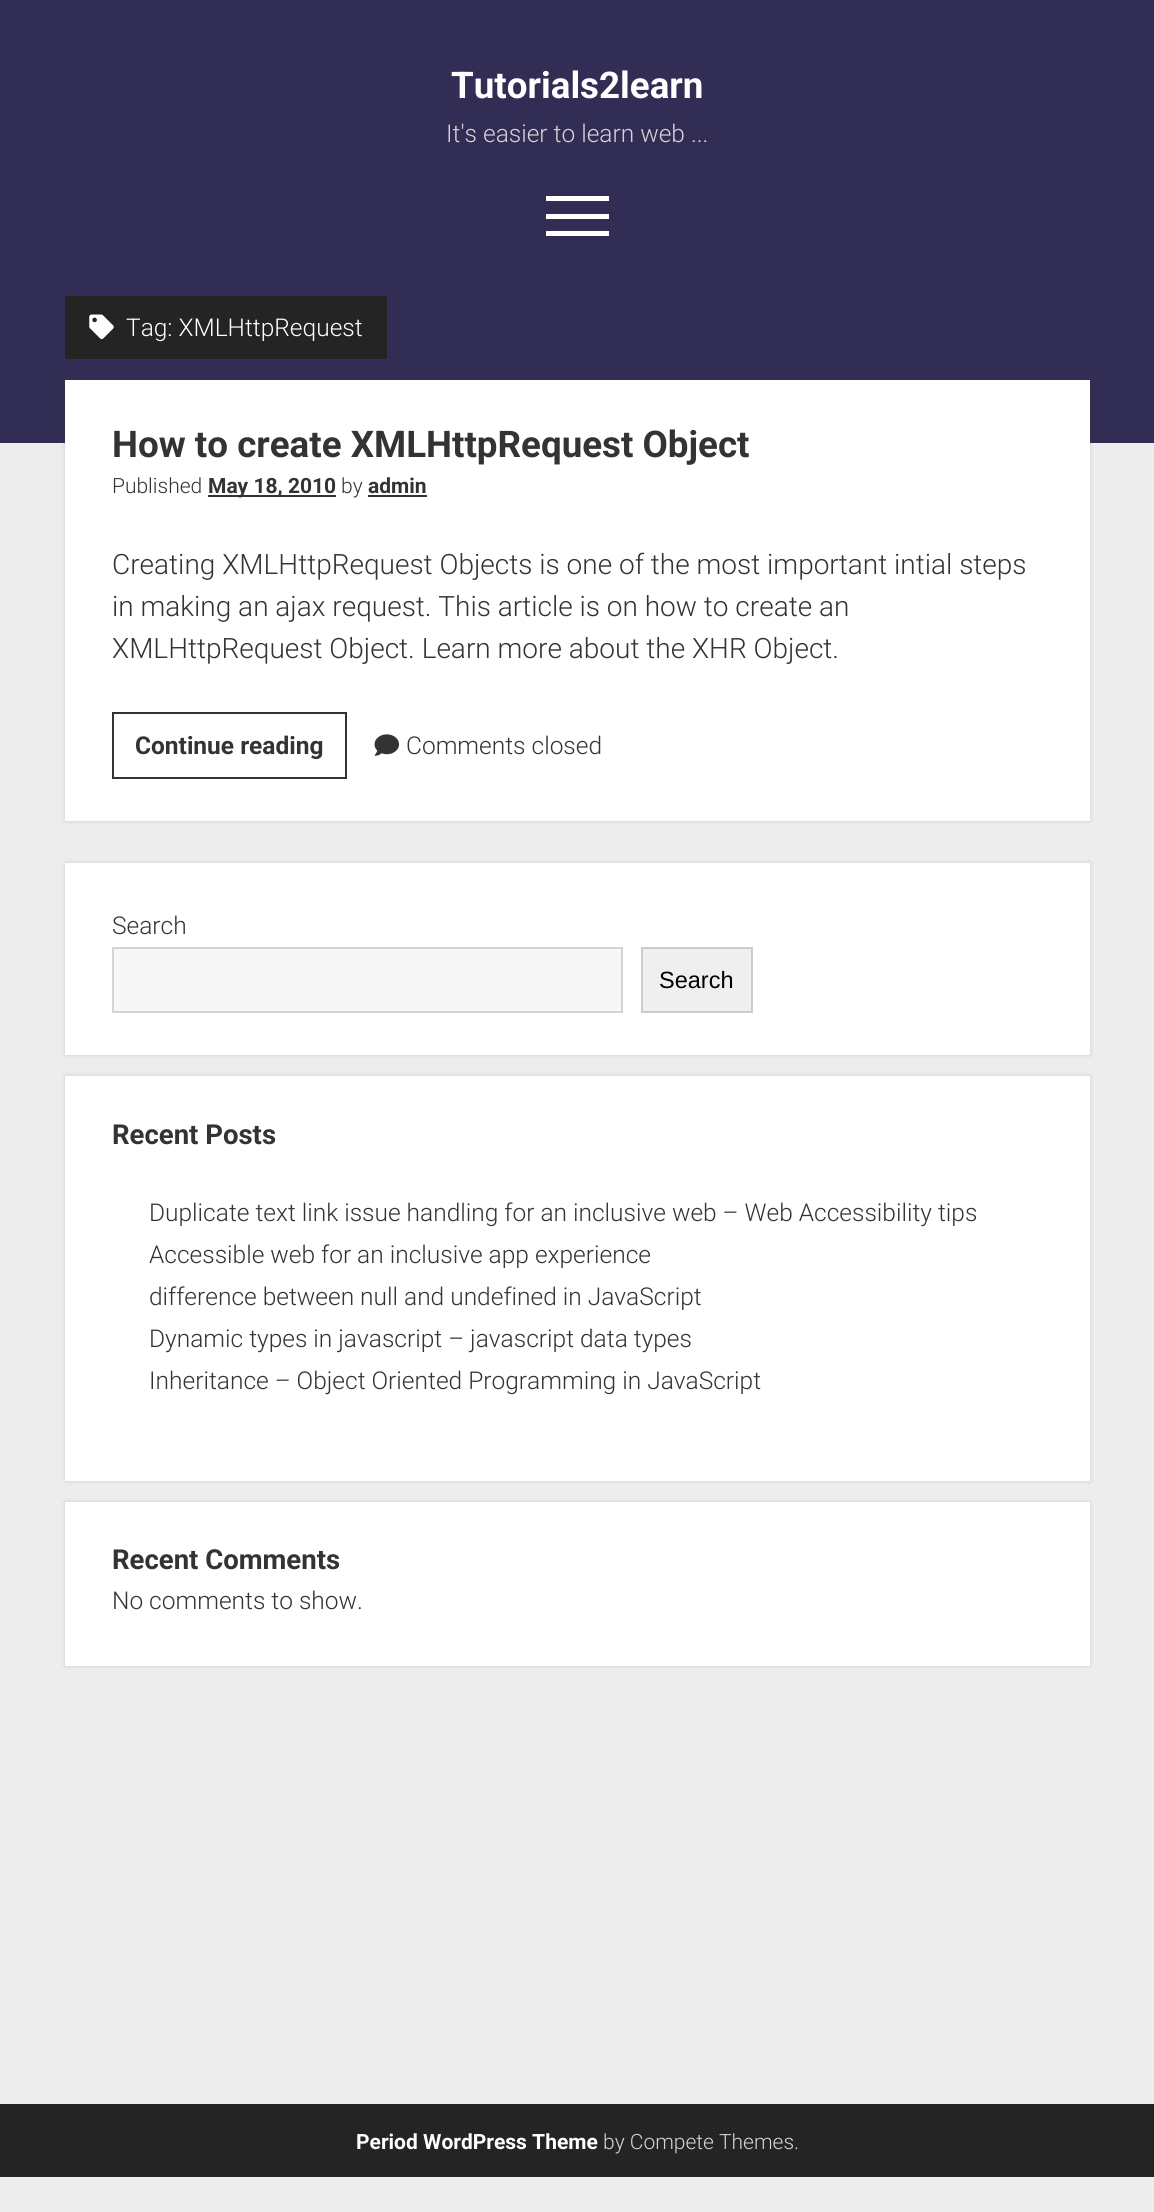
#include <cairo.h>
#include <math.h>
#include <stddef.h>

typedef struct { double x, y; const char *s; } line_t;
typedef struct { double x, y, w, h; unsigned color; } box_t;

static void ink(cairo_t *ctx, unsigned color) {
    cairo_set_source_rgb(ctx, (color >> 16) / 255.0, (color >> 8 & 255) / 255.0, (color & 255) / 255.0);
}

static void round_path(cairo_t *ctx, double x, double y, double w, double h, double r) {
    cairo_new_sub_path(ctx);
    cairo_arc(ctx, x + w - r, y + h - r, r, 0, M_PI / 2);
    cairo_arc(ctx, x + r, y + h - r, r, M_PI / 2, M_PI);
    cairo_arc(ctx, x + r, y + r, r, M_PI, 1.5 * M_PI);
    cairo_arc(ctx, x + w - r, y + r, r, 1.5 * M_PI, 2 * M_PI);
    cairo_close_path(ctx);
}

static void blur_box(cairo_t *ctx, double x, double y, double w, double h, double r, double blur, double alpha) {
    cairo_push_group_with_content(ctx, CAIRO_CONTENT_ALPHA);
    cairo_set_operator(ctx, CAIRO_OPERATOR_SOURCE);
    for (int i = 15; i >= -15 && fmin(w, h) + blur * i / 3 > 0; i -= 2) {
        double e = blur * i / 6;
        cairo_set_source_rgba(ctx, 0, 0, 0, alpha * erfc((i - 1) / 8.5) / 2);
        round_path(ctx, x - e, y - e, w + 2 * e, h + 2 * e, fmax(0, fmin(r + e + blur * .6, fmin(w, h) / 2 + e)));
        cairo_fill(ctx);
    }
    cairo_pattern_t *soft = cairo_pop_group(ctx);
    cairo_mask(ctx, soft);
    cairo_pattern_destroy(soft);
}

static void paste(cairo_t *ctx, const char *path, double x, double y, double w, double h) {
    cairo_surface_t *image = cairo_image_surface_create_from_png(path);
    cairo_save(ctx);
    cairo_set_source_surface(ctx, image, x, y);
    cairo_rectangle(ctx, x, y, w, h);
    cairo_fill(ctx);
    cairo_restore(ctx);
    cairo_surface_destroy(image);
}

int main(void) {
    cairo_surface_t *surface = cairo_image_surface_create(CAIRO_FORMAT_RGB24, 1154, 2212);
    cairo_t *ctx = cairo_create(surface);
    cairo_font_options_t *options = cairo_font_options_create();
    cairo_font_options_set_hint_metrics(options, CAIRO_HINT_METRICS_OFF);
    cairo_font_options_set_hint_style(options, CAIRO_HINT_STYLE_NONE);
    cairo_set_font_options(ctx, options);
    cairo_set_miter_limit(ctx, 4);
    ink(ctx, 0xEDEDED);
    cairo_paint(ctx);
    ink(ctx, 0x322D54);
    cairo_rectangle(ctx, 0, 0, 1154, 443);
    cairo_fill(ctx);
    cairo_select_font_face(ctx, "Roboto", CAIRO_FONT_SLANT_NORMAL, CAIRO_FONT_WEIGHT_BOLD);
    cairo_set_font_size(ctx, 36.75);
    ink(ctx, 0xFFFFFF);
    cairo_move_to(ctx, 451, 98);
    cairo_show_text(ctx, "Tutorials2learn");
    cairo_select_font_face(ctx, "Roboto Light", CAIRO_FONT_SLANT_NORMAL, CAIRO_FONT_WEIGHT_NORMAL);
    cairo_set_font_size(ctx, 24.5);
    ink(ctx, 0xD4D4D4);
    cairo_move_to(ctx, 446, 142);
    cairo_show_text(ctx, "It's easier to learn web ...");
    {
        static const box_t items[] = {
            {546, 196, 63, 5, 0xFFFFFF},
            {546, 214, 63, 5, 0xFFFFFF},
            {546, 231, 63, 5, 0xFFFFFF},
            {65, 296, 322, 63, 0x242424},
        };
        for (size_t i = 0; i < sizeof items / sizeof *items; i++) {
            ink(ctx, items[i].color);
            cairo_rectangle(ctx, items[i].x, items[i].y, items[i].w, items[i].h);
            cairo_fill(ctx);
        }
    }
    paste(ctx, "media/1.png", 89, 314, 25, 25);
    ink(ctx, 0xFFFFFF);
    cairo_move_to(ctx, 126, 336);
    cairo_show_text(ctx, "Tag: XMLHttpRequest");
    ink(ctx, 0x3A3A3A);
    blur_box(ctx, 65, 380, 1025, 441, 0, 2, 0.2);
    ink(ctx, 0xFFFFFF);
    cairo_rectangle(ctx, 65, 380, 1025, 441);
    cairo_fill(ctx);
    cairo_select_font_face(ctx, "Roboto", CAIRO_FONT_SLANT_NORMAL, CAIRO_FONT_WEIGHT_BOLD);
    cairo_set_font_size(ctx, 36.75);
    ink(ctx, 0x333333);
    cairo_move_to(ctx, 112, 457);
    cairo_show_text(ctx, "How to create XMLHttpRequest Object");
    cairo_select_font_face(ctx, "Roboto Light", CAIRO_FONT_SLANT_NORMAL, CAIRO_FONT_WEIGHT_NORMAL);
    cairo_set_font_size(ctx, 21);
    cairo_move_to(ctx, 112, 493);
    cairo_show_text(ctx, "Published");
    cairo_rectangle(ctx, 208, 495, 128, 2);
    cairo_fill(ctx);
    cairo_select_font_face(ctx, "Roboto", CAIRO_FONT_SLANT_NORMAL, CAIRO_FONT_WEIGHT_BOLD);
    cairo_move_to(ctx, 208, 493);
    cairo_show_text(ctx, "May 18, 2010");
    cairo_select_font_face(ctx, "Roboto Light", CAIRO_FONT_SLANT_NORMAL, CAIRO_FONT_WEIGHT_NORMAL);
    cairo_move_to(ctx, 341, 493);
    cairo_show_text(ctx, "by");
    cairo_select_font_face(ctx, "Roboto", CAIRO_FONT_SLANT_NORMAL, CAIRO_FONT_WEIGHT_BOLD);
    cairo_move_to(ctx, 368, 493);
    cairo_show_text(ctx, "admin");
    cairo_rectangle(ctx, 368, 495, 59, 2);
    cairo_fill(ctx);
    cairo_select_font_face(ctx, "Roboto Light", CAIRO_FONT_SLANT_NORMAL, CAIRO_FONT_WEIGHT_NORMAL);
    cairo_set_font_size(ctx, 28);
    {
        static const line_t items[] = {
            {112, 574, "Creating XMLHttpRequest Objects is one of the most important intial steps"},
            {112, 616, "in making an ajax request. This article is on how to create an"},
            {112, 658, "XMLHttpRequest Object. Learn more about the XHR Object."},
        };
        for (size_t i = 0; i < sizeof items / sizeof *items; i++) {
            cairo_move_to(ctx, items[i].x, items[i].y);
            cairo_show_text(ctx, items[i].s);
        }
    }
    cairo_rectangle(ctx, 113, 713, 233, 65);
    cairo_stroke(ctx);
    cairo_select_font_face(ctx, "Roboto", CAIRO_FONT_SLANT_NORMAL, CAIRO_FONT_WEIGHT_BOLD);
    cairo_set_font_size(ctx, 24.5);
    cairo_move_to(ctx, 135, 754);
    cairo_show_text(ctx, "Continue reading");
    paste(ctx, "media/2.png", 374, 734, 25, 22);
    cairo_select_font_face(ctx, "Roboto Light", CAIRO_FONT_SLANT_NORMAL, CAIRO_FONT_WEIGHT_NORMAL);
    cairo_move_to(ctx, 406, 754);
    cairo_show_text(ctx, "Comments closed");
    ink(ctx, 0x3A3A3A);
    blur_box(ctx, 65, 863, 1025, 192, 0, 2, 0.2);
    ink(ctx, 0xFFFFFF);
    cairo_rectangle(ctx, 65, 863, 1025, 192);
    cairo_fill(ctx);
    ink(ctx, 0x333333);
    cairo_move_to(ctx, 112, 934);
    cairo_show_text(ctx, "Search");
    ink(ctx, 0xF7F7F7);
    cairo_rectangle(ctx, 113, 948, 509, 64);
    cairo_fill_preserve(ctx);
    ink(ctx, 0xD4D4D4);
    cairo_stroke(ctx);
    ink(ctx, 0xEFEFEF);
    cairo_rectangle(ctx, 642, 948, 110, 64);
    cairo_fill_preserve(ctx);
    ink(ctx, 0xCCCCCC);
    cairo_stroke(ctx);
    cairo_select_font_face(ctx, "Liberation Sans", CAIRO_FONT_SLANT_NORMAL, CAIRO_FONT_WEIGHT_NORMAL);
    cairo_set_font_size(ctx, 23.5);
    ink(ctx, 0x000000);
    cairo_move_to(ctx, 659, 988);
    cairo_show_text(ctx, "Search");
    ink(ctx, 0x3A3A3A);
    blur_box(ctx, 65, 1076, 1025, 405, 0, 2, 0.2);
    ink(ctx, 0xFFFFFF);
    cairo_rectangle(ctx, 65, 1076, 1025, 405);
    cairo_fill(ctx);
    cairo_select_font_face(ctx, "Roboto", CAIRO_FONT_SLANT_NORMAL, CAIRO_FONT_WEIGHT_BOLD);
    cairo_set_font_size(ctx, 27.5);
    ink(ctx, 0x333333);
    cairo_move_to(ctx, 112, 1144);
    cairo_show_text(ctx, "Recent Posts");
    cairo_select_font_face(ctx, "Roboto Light", CAIRO_FONT_SLANT_NORMAL, CAIRO_FONT_WEIGHT_NORMAL);
    cairo_set_font_size(ctx, 24.5);
    {
        static const line_t items[] = {
            {149, 1221, "Duplicate text link issue handling for an inclusive web – Web Accessibility tips"},
            {149, 1263, "Accessible web for an inclusive app experience"},
            {149, 1305, "difference between null and undefined in JavaScript"},
            {149, 1347, "Dynamic types in javascript – javascript data types"},
            {149, 1389, "Inheritance – Object Oriented Programming in JavaScript"},
        };
        for (size_t i = 0; i < sizeof items / sizeof *items; i++) {
            cairo_move_to(ctx, items[i].x, items[i].y);
            cairo_show_text(ctx, items[i].s);
        }
    }
    ink(ctx, 0x3A3A3A);
    blur_box(ctx, 65, 1502, 1025, 164, 0, 2, 0.2);
    ink(ctx, 0xFFFFFF);
    cairo_rectangle(ctx, 65, 1502, 1025, 164);
    cairo_fill(ctx);
    cairo_select_font_face(ctx, "Roboto", CAIRO_FONT_SLANT_NORMAL, CAIRO_FONT_WEIGHT_BOLD);
    cairo_set_font_size(ctx, 27.5);
    ink(ctx, 0x333333);
    cairo_move_to(ctx, 112, 1569);
    cairo_show_text(ctx, "Recent Comments");
    cairo_select_font_face(ctx, "Roboto Light", CAIRO_FONT_SLANT_NORMAL, CAIRO_FONT_WEIGHT_NORMAL);
    cairo_set_font_size(ctx, 24.5);
    cairo_move_to(ctx, 112, 1609);
    cairo_show_text(ctx, "No comments to show.");
    ink(ctx, 0x242424);
    cairo_rectangle(ctx, 0, 2104, 1154, 73);
    cairo_fill(ctx);
    cairo_select_font_face(ctx, "Roboto", CAIRO_FONT_SLANT_NORMAL, CAIRO_FONT_WEIGHT_BOLD);
    cairo_set_font_size(ctx, 21);
    ink(ctx, 0xFFFFFF);
    cairo_move_to(ctx, 356, 2149);
    cairo_show_text(ctx, "Period WordPress Theme");
    cairo_select_font_face(ctx, "Roboto Light", CAIRO_FONT_SLANT_NORMAL, CAIRO_FONT_WEIGHT_NORMAL);
    ink(ctx, 0xD4D4D4);
    cairo_move_to(ctx, 603, 2149);
    cairo_show_text(ctx, "by Compete Themes.");
    cairo_surface_write_to_png(surface, "image.png");
    cairo_font_options_destroy(options);
    cairo_destroy(ctx);
    cairo_surface_destroy(surface);
    return 0;
}
